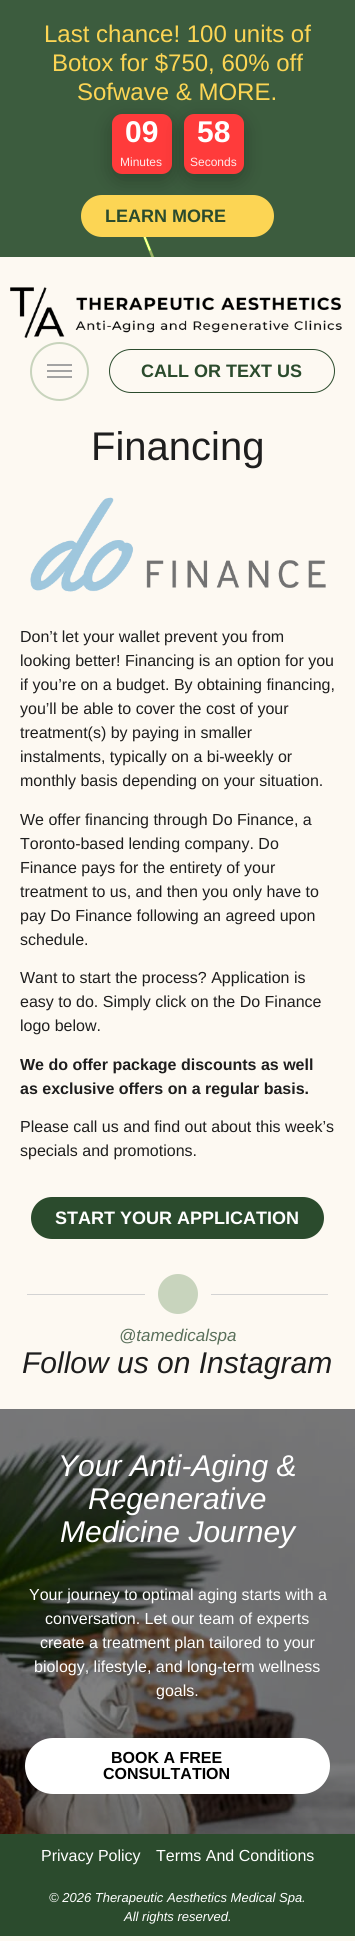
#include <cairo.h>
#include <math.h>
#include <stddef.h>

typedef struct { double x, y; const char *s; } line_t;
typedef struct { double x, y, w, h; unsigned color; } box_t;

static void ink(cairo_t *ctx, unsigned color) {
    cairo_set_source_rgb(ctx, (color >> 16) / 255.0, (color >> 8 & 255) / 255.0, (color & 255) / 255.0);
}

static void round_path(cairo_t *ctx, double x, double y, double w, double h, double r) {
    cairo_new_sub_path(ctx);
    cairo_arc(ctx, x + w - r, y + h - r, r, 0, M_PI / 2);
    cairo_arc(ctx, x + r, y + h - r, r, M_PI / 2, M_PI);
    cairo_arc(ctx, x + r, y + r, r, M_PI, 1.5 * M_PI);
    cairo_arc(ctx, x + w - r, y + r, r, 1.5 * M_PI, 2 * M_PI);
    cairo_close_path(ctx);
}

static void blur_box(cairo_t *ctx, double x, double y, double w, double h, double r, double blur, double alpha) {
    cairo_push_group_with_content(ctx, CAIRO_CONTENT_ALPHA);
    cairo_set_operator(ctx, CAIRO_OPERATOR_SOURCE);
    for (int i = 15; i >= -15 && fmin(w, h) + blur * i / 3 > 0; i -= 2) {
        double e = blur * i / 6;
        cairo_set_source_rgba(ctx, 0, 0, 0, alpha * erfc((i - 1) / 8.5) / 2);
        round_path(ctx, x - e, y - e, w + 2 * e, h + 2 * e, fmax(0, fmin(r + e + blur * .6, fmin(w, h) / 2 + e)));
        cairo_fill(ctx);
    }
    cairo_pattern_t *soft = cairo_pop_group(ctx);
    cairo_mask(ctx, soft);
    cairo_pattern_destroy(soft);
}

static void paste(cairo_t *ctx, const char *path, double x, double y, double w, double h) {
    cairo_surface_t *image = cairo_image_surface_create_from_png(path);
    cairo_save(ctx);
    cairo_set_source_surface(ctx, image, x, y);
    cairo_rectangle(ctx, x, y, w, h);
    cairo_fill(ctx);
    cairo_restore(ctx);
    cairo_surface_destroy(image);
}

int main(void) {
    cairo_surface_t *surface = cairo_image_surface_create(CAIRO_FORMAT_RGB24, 355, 1941);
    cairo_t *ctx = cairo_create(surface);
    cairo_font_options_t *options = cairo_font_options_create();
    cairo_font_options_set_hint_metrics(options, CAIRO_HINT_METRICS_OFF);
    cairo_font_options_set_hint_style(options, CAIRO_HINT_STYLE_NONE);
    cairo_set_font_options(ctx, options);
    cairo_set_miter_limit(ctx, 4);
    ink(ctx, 0xFDF9F2);
    cairo_paint(ctx);
    ink(ctx, 0x3C5C3E);
    cairo_rectangle(ctx, 0, 0, 355, 257);
    cairo_fill(ctx);
    cairo_select_font_face(ctx, "Liberation Sans", CAIRO_FONT_SLANT_NORMAL, CAIRO_FONT_WEIGHT_NORMAL);
    cairo_set_font_size(ctx, 24);
    ink(ctx, 0xFCD554);
    {
        static const line_t items[] = {
            {44, 42, "Last chance! 100 units of"},
            {52, 71, "Botox for $750, 60% off"},
            {77, 100, "Sofwave & MORE."},
        };
        for (size_t i = 0; i < sizeof items / sizeof *items; i++) {
            cairo_move_to(ctx, items[i].x, items[i].y);
            cairo_show_text(ctx, items[i].s);
        }
    }
    ink(ctx, 0x000000);
    blur_box(ctx, 112, 120, 60, 60, 10, 10, 0.25);
    ink(ctx, 0xFF3B3B);
    round_path(ctx, 112, 114, 60, 60, 10);
    cairo_fill(ctx);
    cairo_select_font_face(ctx, "Liberation Sans", CAIRO_FONT_SLANT_NORMAL, CAIRO_FONT_WEIGHT_BOLD);
    cairo_set_font_size(ctx, 30);
    ink(ctx, 0xFFFFFF);
    cairo_move_to(ctx, 125, 142);
    cairo_show_text(ctx, "09");
    ink(ctx, 0x000000);
    blur_box(ctx, 184, 120, 60, 60, 10, 10, 0.25);
    cairo_select_font_face(ctx, "Liberation Sans", CAIRO_FONT_SLANT_NORMAL, CAIRO_FONT_WEIGHT_NORMAL);
    cairo_set_font_size(ctx, 12);
    ink(ctx, 0xFFEBEB);
    cairo_move_to(ctx, 120, 166);
    cairo_show_text(ctx, "Minutes");
    ink(ctx, 0xFF3B3B);
    round_path(ctx, 184, 114, 60, 60, 10);
    cairo_fill(ctx);
    cairo_select_font_face(ctx, "Liberation Sans", CAIRO_FONT_SLANT_NORMAL, CAIRO_FONT_WEIGHT_BOLD);
    cairo_set_font_size(ctx, 30);
    ink(ctx, 0xFFFFFF);
    cairo_move_to(ctx, 197, 142);
    cairo_show_text(ctx, "58");
    cairo_select_font_face(ctx, "Liberation Sans", CAIRO_FONT_SLANT_NORMAL, CAIRO_FONT_WEIGHT_NORMAL);
    cairo_set_font_size(ctx, 12);
    ink(ctx, 0xFFEBEB);
    cairo_move_to(ctx, 190, 166);
    cairo_show_text(ctx, "Seconds");
    ink(ctx, 0xFCD554);
    round_path(ctx, 81, 195, 193, 42, 21);
    cairo_fill(ctx);
    cairo_select_font_face(ctx, "Liberation Sans", CAIRO_FONT_SLANT_NORMAL, CAIRO_FONT_WEIGHT_BOLD);
    cairo_set_font_size(ctx, 18);
    ink(ctx, 0x2B4B2D);
    cairo_move_to(ctx, 105, 222);
    cairo_show_text(ctx, "LEARN MORE");
    paste(ctx, "media/1.png", 143, 237, 12, 20);
    paste(ctx, "media/2.png", 10, 287, 332, 51);
    cairo_arc(ctx, 59.5, 371.5, 28.5, 0, 2 * M_PI);
    ink(ctx, 0xC8D4BD);
    cairo_stroke(ctx);
    {
        static const box_t items[] = {
            {47, 364, 25, 2, 0xA3A3A3},
            {47, 370, 25, 2, 0xA3A3A3},
            {47, 376, 25, 2, 0xA3A3A3},
        };
        for (size_t i = 0; i < sizeof items / sizeof *items; i++) {
            ink(ctx, items[i].color);
            cairo_rectangle(ctx, items[i].x, items[i].y, items[i].w, items[i].h);
            cairo_fill(ctx);
        }
    }
    round_path(ctx, 109.5, 349.5, 225, 43, 21.5);
    ink(ctx, 0x2B4B2D);
    cairo_set_line_width(ctx, 1);
    cairo_stroke(ctx);
    cairo_move_to(ctx, 141, 377);
    cairo_show_text(ctx, "CALL OR TEXT US");
    cairo_select_font_face(ctx, "Liberation Sans", CAIRO_FONT_SLANT_NORMAL, CAIRO_FONT_WEIGHT_NORMAL);
    cairo_set_font_size(ctx, 40);
    ink(ctx, 0x1E1E1E);
    cairo_move_to(ctx, 91, 460);
    cairo_show_text(ctx, "Financing");
    paste(ctx, "media/3.png", 30, 497, 296, 95);
    cairo_set_font_size(ctx, 16);
    {
        static const line_t items[] = {
            {20, 642, "Don’t let your wallet prevent you from"},
            {20, 666, "looking better! Financing is an option for you"},
            {20, 690, "if you’re on a budget. By obtaining financing,"},
            {20, 714, "you’ll be able to cover the cost of your"},
            {20, 738, "treatment(s) by paying in smaller"},
            {20, 762, "instalments, typically on a bi-weekly or"},
            {20, 786, "monthly basis depending on your situation."},
            {20, 825, "We offer financing through Do Finance, a"},
            {20, 849, "Toronto-based lending company. Do"},
            {20, 873, "Finance pays for the entirety of your"},
            {20, 897, "treatment to us, and then you only have to"},
            {20, 921, "pay Do Finance following an agreed upon"},
            {20, 945, "schedule."},
            {20, 983, "Want to start the process? Application is"},
            {20, 1007, "easy to do. Simply click on the Do Finance"},
            {20, 1031, "logo below."},
        };
        for (size_t i = 0; i < sizeof items / sizeof *items; i++) {
            cairo_move_to(ctx, items[i].x, items[i].y);
            cairo_show_text(ctx, items[i].s);
        }
    }
    cairo_select_font_face(ctx, "Liberation Sans", CAIRO_FONT_SLANT_NORMAL, CAIRO_FONT_WEIGHT_BOLD);
    cairo_move_to(ctx, 20, 1070);
    cairo_show_text(ctx, "We do offer package discounts as well");
    cairo_move_to(ctx, 20, 1094);
    cairo_show_text(ctx, "as exclusive offers on a regular basis.");
    cairo_select_font_face(ctx, "Liberation Sans", CAIRO_FONT_SLANT_NORMAL, CAIRO_FONT_WEIGHT_NORMAL);
    cairo_move_to(ctx, 20, 1132);
    cairo_show_text(ctx, "Please call us and find out about this week’s");
    cairo_move_to(ctx, 20, 1156);
    cairo_show_text(ctx, "specials and promotions.");
    ink(ctx, 0x2B4B2D);
    round_path(ctx, 31, 1197, 293, 42, 21);
    cairo_fill(ctx);
    cairo_select_font_face(ctx, "Liberation Sans", CAIRO_FONT_SLANT_NORMAL, CAIRO_FONT_WEIGHT_BOLD);
    cairo_set_font_size(ctx, 18);
    ink(ctx, 0xFFFFFF);
    cairo_move_to(ctx, 55, 1224);
    cairo_show_text(ctx, "START YOUR APPLICATION");
    ink(ctx, 0xD3D3D3);
    cairo_rectangle(ctx, 27, 1294, 118, 1);
    cairo_fill(ctx);
    ink(ctx, 0xC8D4BD);
    cairo_arc(ctx, 178, 1294, 21.5, 0, 2 * M_PI);
    cairo_fill_preserve(ctx);
    ink(ctx, 0xFDF9F2);
    cairo_set_line_width(ctx, 3);
    cairo_stroke(ctx);
    ink(ctx, 0xD3D3D3);
    cairo_rectangle(ctx, 211, 1294, 117, 1);
    cairo_fill(ctx);
    cairo_select_font_face(ctx, "Liberation Sans", CAIRO_FONT_SLANT_ITALIC, CAIRO_FONT_WEIGHT_NORMAL);
    cairo_set_font_size(ctx, 17);
    ink(ctx, 0x5A705B);
    cairo_move_to(ctx, 119, 1341);
    cairo_show_text(ctx, "@tamedicalspa");
    cairo_set_font_size(ctx, 30);
    ink(ctx, 0x1E1E1E);
    cairo_move_to(ctx, 22, 1373);
    cairo_show_text(ctx, "Follow us on Instagram");
    paste(ctx, "media/4.png", 0, 1409, 355, 425);
    ink(ctx, 0xFFFFFF);
    {
        static const line_t items[] = {
            {58, 1476, "Your Anti-Aging &"},
            {88, 1509, "Regenerative"},
            {60, 1542, "Medicine Journey"},
        };
        for (size_t i = 0; i < sizeof items / sizeof *items; i++) {
            cairo_move_to(ctx, items[i].x, items[i].y);
            cairo_show_text(ctx, items[i].s);
        }
    }
    cairo_select_font_face(ctx, "Liberation Sans", CAIRO_FONT_SLANT_NORMAL, CAIRO_FONT_WEIGHT_NORMAL);
    cairo_set_font_size(ctx, 16);
    {
        static const line_t items[] = {
            {29, 1600, "Your journey to optimal aging starts with a"},
            {45, 1624, "conversation. Let our team of experts"},
            {40, 1648, "create a treatment plan tailored to your"},
            {34, 1672, "biology, lifestyle, and long-term wellness"},
            {156, 1696, "goals."},
        };
        for (size_t i = 0; i < sizeof items / sizeof *items; i++) {
            cairo_move_to(ctx, items[i].x, items[i].y);
            cairo_show_text(ctx, items[i].s);
        }
    }
    round_path(ctx, 25, 1738, 305, 56, 28);
    cairo_fill(ctx);
    cairo_select_font_face(ctx, "Liberation Sans", CAIRO_FONT_SLANT_NORMAL, CAIRO_FONT_WEIGHT_BOLD);
    ink(ctx, 0x000000);
    cairo_move_to(ctx, 111, 1763);
    cairo_show_text(ctx, "BOOK A FREE");
    cairo_move_to(ctx, 103, 1779);
    cairo_show_text(ctx, "CONSULTATION");
    ink(ctx, 0x2B4B2D);
    cairo_rectangle(ctx, 0, 1834, 355, 102);
    cairo_fill(ctx);
    cairo_select_font_face(ctx, "Liberation Sans", CAIRO_FONT_SLANT_NORMAL, CAIRO_FONT_WEIGHT_NORMAL);
    ink(ctx, 0xFFFFFF);
    cairo_move_to(ctx, 41, 1861);
    cairo_show_text(ctx, "Privacy Policy");
    cairo_move_to(ctx, 156, 1861);
    cairo_show_text(ctx, "Terms And Conditions");
    cairo_select_font_face(ctx, "Liberation Sans", CAIRO_FONT_SLANT_ITALIC, CAIRO_FONT_WEIGHT_NORMAL);
    cairo_set_font_size(ctx, 13);
    cairo_move_to(ctx, 49, 1902);
    cairo_show_text(ctx, "© 2026 Therapeutic Aesthetics Medical Spa.");
    cairo_move_to(ctx, 124, 1921);
    cairo_show_text(ctx, "All rights reserved.");
    cairo_surface_write_to_png(surface, "image.png");
    cairo_font_options_destroy(options);
    cairo_destroy(ctx);
    cairo_surface_destroy(surface);
    return 0;
}
